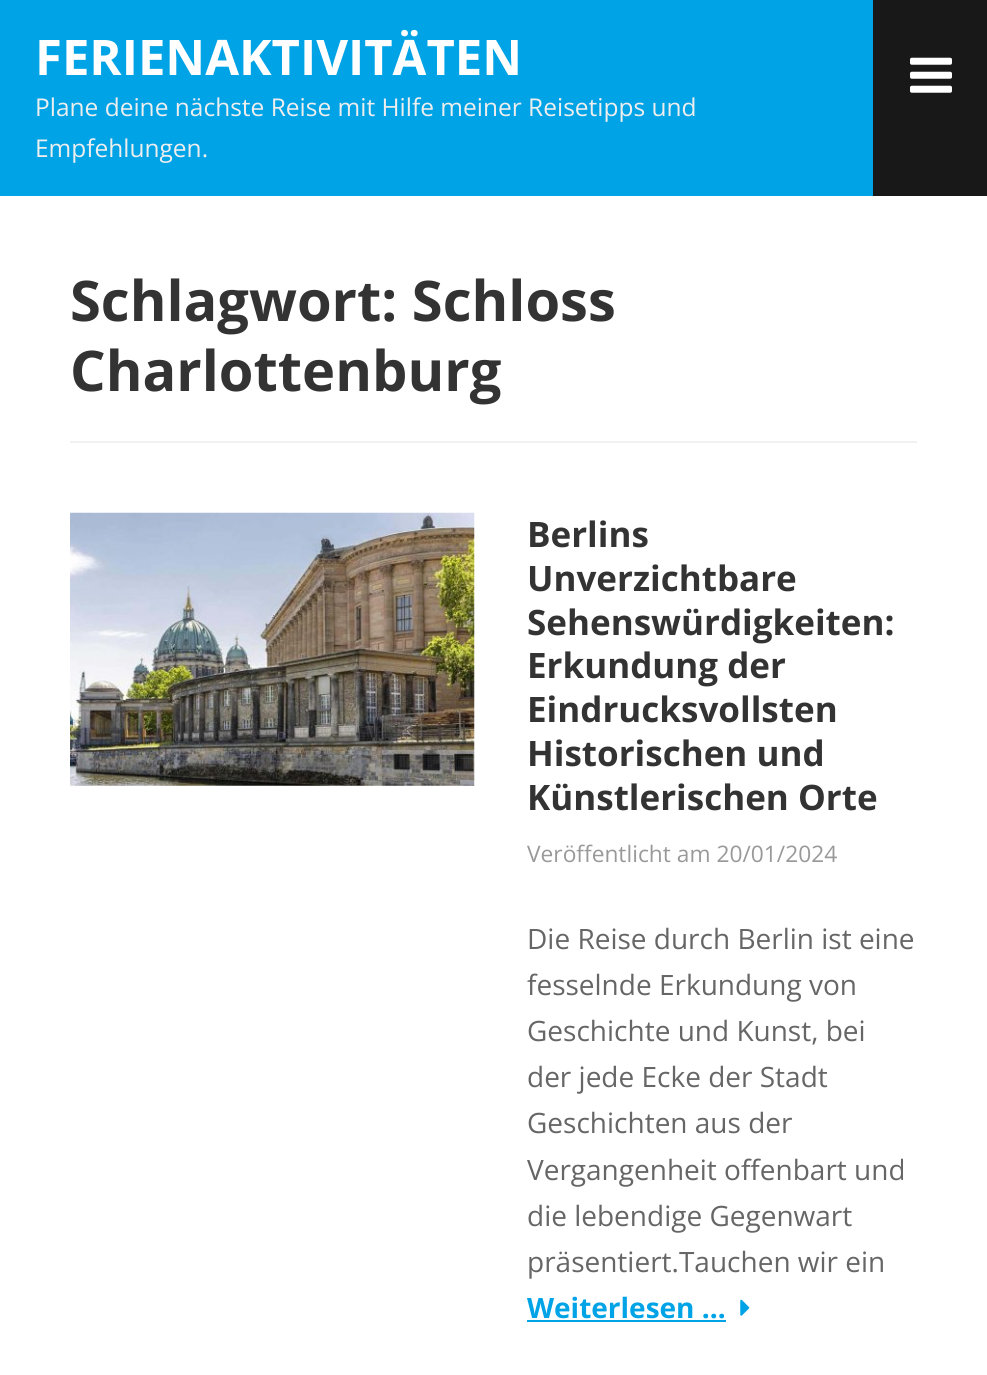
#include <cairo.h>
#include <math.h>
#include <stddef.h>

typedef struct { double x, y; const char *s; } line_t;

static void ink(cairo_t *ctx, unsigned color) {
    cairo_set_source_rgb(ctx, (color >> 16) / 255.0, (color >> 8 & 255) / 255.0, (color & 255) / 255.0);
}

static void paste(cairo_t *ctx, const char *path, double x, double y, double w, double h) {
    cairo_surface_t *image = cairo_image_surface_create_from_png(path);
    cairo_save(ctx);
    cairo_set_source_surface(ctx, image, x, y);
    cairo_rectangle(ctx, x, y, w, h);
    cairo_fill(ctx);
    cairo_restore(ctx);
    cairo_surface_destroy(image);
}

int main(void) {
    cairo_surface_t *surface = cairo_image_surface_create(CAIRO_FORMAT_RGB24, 987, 1375);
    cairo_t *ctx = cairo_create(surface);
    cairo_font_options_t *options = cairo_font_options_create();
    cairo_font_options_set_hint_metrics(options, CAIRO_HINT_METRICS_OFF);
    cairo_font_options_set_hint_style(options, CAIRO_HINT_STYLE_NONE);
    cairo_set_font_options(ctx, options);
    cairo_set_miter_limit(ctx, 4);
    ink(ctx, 0xFFFFFF);
    cairo_paint(ctx);
    ink(ctx, 0x181818);
    cairo_rectangle(ctx, 873, 0, 114, 196);
    cairo_fill(ctx);
    ink(ctx, 0x00A3E6);
    cairo_rectangle(ctx, 0, 0, 873, 196);
    cairo_fill(ctx);
    cairo_select_font_face(ctx, "Open Sans", CAIRO_FONT_SLANT_NORMAL, CAIRO_FONT_WEIGHT_BOLD);
    cairo_set_font_size(ctx, 49);
    ink(ctx, 0xFFFFFF);
    cairo_move_to(ctx, 35, 75);
    cairo_show_text(ctx, "FERIENAKTIVITÄTEN");
    cairo_select_font_face(ctx, "Open Sans", CAIRO_FONT_SLANT_NORMAL, CAIRO_FONT_WEIGHT_NORMAL);
    cairo_set_font_size(ctx, 24.5);
    ink(ctx, 0xEEEEEE);
    cairo_move_to(ctx, 35, 116);
    cairo_show_text(ctx, "Plane deine nächste Reise mit Hilfe meiner Reisetipps und");
    cairo_move_to(ctx, 35, 157);
    cairo_show_text(ctx, "Empfehlungen.");
    paste(ctx, "media/1.png", 910, 57, 42, 36);
    ink(ctx, 0xF1F1F1);
    cairo_rectangle(ctx, 70, 441, 847, 2);
    cairo_fill(ctx);
    cairo_select_font_face(ctx, "Open Sans", CAIRO_FONT_SLANT_NORMAL, CAIRO_FONT_WEIGHT_BOLD);
    cairo_set_font_size(ctx, 56);
    ink(ctx, 0x333333);
    cairo_move_to(ctx, 70, 321);
    cairo_show_text(ctx, "Schlagwort: Schloss");
    cairo_move_to(ctx, 70, 391);
    cairo_show_text(ctx, "Charlottenburg");
    paste(ctx, "media/2.png", 70, 512, 405, 274);
    cairo_set_font_size(ctx, 35);
    {
        static const line_t items[] = {
            {527, 547, "Berlins"},
            {527, 591, "Unverzichtbare"},
            {527, 635, "Sehenswürdigkeiten:"},
            {527, 678, "Erkundung der"},
            {527, 722, "Eindrucksvollsten"},
            {527, 766, "Historischen und"},
            {527, 810, "Künstlerischen Orte"},
        };
        for (size_t i = 0; i < sizeof items / sizeof *items; i++) {
            cairo_move_to(ctx, items[i].x, items[i].y);
            cairo_show_text(ctx, items[i].s);
        }
    }
    cairo_select_font_face(ctx, "Open Sans", CAIRO_FONT_SLANT_NORMAL, CAIRO_FONT_WEIGHT_NORMAL);
    cairo_set_font_size(ctx, 22.75);
    ink(ctx, 0x999999);
    cairo_move_to(ctx, 527, 862);
    cairo_show_text(ctx, "Veröffentlicht am 20/01/2024");
    cairo_set_font_size(ctx, 28);
    ink(ctx, 0x666666);
    {
        static const line_t items[] = {
            {527, 949, "Die Reise durch Berlin ist eine"},
            {527, 995, "fesselnde Erkundung von"},
            {527, 1041, "Geschichte und Kunst, bei"},
            {527, 1087, "der jede Ecke der Stadt"},
            {527, 1133, "Geschichten aus der"},
            {527, 1180, "Vergangenheit offenbart und"},
            {527, 1226, "die lebendige Gegenwart"},
            {527, 1272, "präsentiert.Tauchen wir ein"},
        };
        for (size_t i = 0; i < sizeof items / sizeof *items; i++) {
            cairo_move_to(ctx, items[i].x, items[i].y);
            cairo_show_text(ctx, items[i].s);
        }
    }
    cairo_select_font_face(ctx, "Open Sans", CAIRO_FONT_SLANT_NORMAL, CAIRO_FONT_WEIGHT_BOLD);
    ink(ctx, 0x00A3E6);
    cairo_move_to(ctx, 527, 1318);
    cairo_show_text(ctx, "Weiterlesen …");
    cairo_rectangle(ctx, 527, 1320, 199, 2);
    cairo_fill(ctx);
    paste(ctx, "media/3.png", 740, 1299, 10, 17);
    cairo_surface_write_to_png(surface, "image.png");
    cairo_font_options_destroy(options);
    cairo_destroy(ctx);
    cairo_surface_destroy(surface);
    return 0;
}
